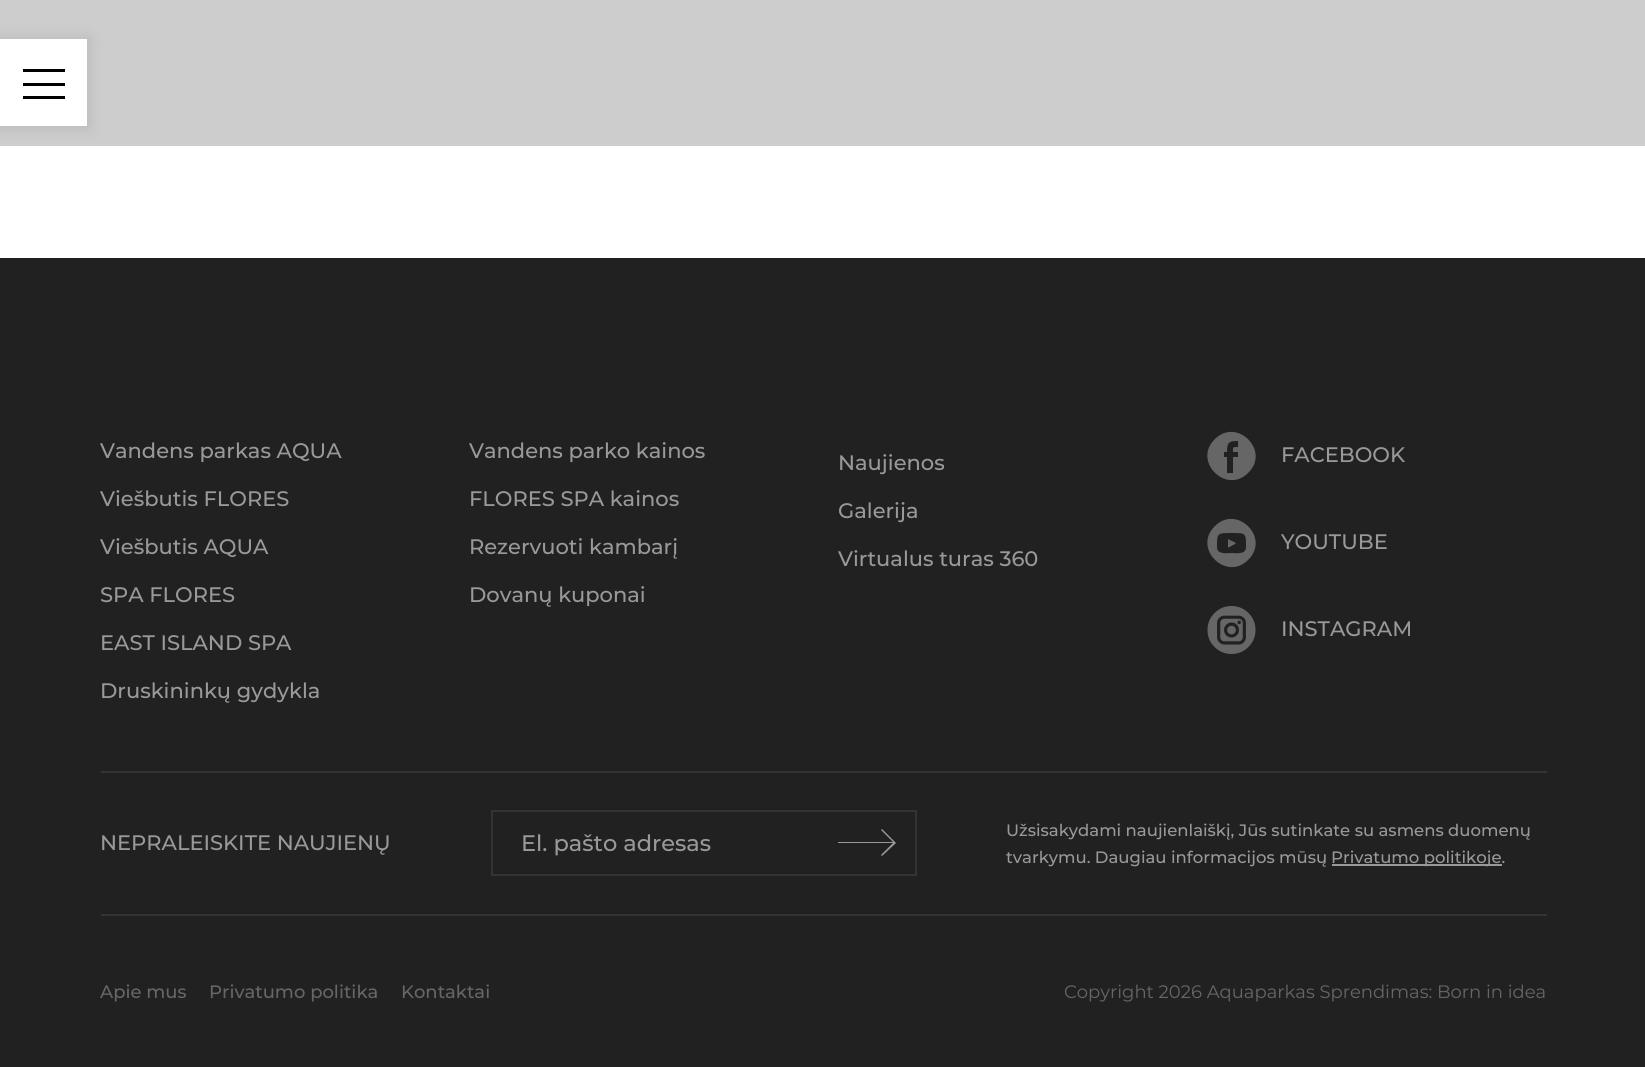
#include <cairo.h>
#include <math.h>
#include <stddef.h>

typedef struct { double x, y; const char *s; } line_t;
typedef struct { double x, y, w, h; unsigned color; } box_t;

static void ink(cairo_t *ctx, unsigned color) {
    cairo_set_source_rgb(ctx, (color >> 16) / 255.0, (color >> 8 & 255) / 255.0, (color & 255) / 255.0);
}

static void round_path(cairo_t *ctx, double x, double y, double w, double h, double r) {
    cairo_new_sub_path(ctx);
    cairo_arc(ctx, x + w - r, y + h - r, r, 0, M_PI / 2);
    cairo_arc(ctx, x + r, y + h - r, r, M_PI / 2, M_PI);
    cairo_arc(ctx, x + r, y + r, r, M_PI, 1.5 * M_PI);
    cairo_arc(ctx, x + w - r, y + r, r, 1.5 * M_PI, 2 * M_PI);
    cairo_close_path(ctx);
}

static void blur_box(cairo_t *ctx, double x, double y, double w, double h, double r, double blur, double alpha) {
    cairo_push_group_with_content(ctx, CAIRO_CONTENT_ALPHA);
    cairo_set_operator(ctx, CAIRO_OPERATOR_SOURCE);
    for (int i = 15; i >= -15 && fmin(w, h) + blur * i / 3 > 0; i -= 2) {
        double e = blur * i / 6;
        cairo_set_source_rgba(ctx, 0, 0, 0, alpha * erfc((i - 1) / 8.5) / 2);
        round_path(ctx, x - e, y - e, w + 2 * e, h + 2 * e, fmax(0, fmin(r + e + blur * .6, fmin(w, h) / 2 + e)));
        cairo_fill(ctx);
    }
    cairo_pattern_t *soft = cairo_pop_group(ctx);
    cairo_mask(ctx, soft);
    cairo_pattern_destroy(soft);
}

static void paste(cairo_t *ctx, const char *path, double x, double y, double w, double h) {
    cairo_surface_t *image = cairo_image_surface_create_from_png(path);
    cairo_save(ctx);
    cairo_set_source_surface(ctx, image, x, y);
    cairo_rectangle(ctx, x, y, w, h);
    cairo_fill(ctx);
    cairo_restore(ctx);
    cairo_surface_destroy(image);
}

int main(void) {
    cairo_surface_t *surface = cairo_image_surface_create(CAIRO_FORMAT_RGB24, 1645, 1067);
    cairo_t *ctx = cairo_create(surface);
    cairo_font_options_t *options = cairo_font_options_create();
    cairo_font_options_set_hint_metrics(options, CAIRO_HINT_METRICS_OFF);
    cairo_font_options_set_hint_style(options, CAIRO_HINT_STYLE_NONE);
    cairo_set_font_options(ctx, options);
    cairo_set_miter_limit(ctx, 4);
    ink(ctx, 0x212121);
    cairo_paint(ctx);
    ink(ctx, 0xFFFFFF);
    cairo_rectangle(ctx, 0, 146, 1645, 112);
    cairo_fill(ctx);
    ink(ctx, 0xCDCDCD);
    cairo_rectangle(ctx, 0, 0, 1645, 146);
    cairo_fill(ctx);
    ink(ctx, 0x000000);
    blur_box(ctx, -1, 38, 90, 90, 0, 7.5, 0.1);
    {
        static const box_t items[] = {
            {0, 39, 87, 87, 0xFFFFFF},
            {23, 69, 42, 3, 0x000000},
            {23, 83, 42, 3, 0x000000},
            {23, 96, 42, 3, 0x000000},
        };
        for (size_t i = 0; i < sizeof items / sizeof *items; i++) {
            ink(ctx, items[i].color);
            cairo_rectangle(ctx, items[i].x, items[i].y, items[i].w, items[i].h);
            cairo_fill(ctx);
        }
    }
    cairo_select_font_face(ctx, "Montserrat Medium", CAIRO_FONT_SLANT_NORMAL, CAIRO_FONT_WEIGHT_NORMAL);
    cairo_set_font_size(ctx, 21);
    ink(ctx, 0x999999);
    {
        static const line_t items[] = {
            {100, 458, "Vandens parkas AQUA"},
            {100, 506, "Viešbutis FLORES"},
            {100, 554, "Viešbutis AQUA"},
            {100, 602, "SPA FLORES"},
            {100, 650, "EAST ISLAND SPA"},
            {100, 698, "Druskininkų gydykla"},
            {469, 458, "Vandens parko kainos"},
            {469, 506, "FLORES SPA kainos"},
            {469, 554, "Rezervuoti kambarį"},
            {469, 602, "Dovanų kuponai"},
            {838, 470, "Naujienos"},
            {838, 518, "Galerija"},
            {838, 566, "Virtualus turas 360"},
        };
        for (size_t i = 0; i < sizeof items / sizeof *items; i++) {
            cairo_move_to(ctx, items[i].x, items[i].y);
            cairo_show_text(ctx, items[i].s);
        }
    }
    ink(ctx, 0x666666);
    cairo_new_path(ctx);
    cairo_move_to(ctx, 1215, 439);
    cairo_curve_to(ctx, 1237, 417, 1271, 451, 1248, 473);
    cairo_curve_to(ctx, 1226, 495, 1192, 461, 1215, 439);
    cairo_close_path(ctx);
    cairo_move_to(ctx, 1238, 447);
    cairo_line_to(ctx, 1238, 441);
    cairo_curve_to(ctx, 1229, 441, 1227, 442, 1227, 452);
    cairo_line_to(ctx, 1224, 452);
    cairo_line_to(ctx, 1224, 457);
    cairo_line_to(ctx, 1227, 457);
    cairo_line_to(ctx, 1227, 473);
    cairo_line_to(ctx, 1233, 473);
    cairo_line_to(ctx, 1233, 457);
    cairo_line_to(ctx, 1238, 457);
    cairo_line_to(ctx, 1238, 452);
    cairo_line_to(ctx, 1233, 452);
    cairo_curve_to(ctx, 1233, 447, 1232, 447, 1238, 447);
    cairo_close_path(ctx);
    cairo_fill(ctx);
    ink(ctx, 0x999999);
    cairo_move_to(ctx, 1281, 462);
    cairo_show_text(ctx, "FACEBOOK");
    ink(ctx, 0x666666);
    cairo_new_path(ctx);
    cairo_move_to(ctx, 1236, 543);
    cairo_curve_to(ctx, 1236, 543, 1235, 544, 1235, 544);
    cairo_curve_to(ctx, 1227, 548, 1228, 550, 1228, 542);
    cairo_line_to(ctx, 1228, 539);
    cairo_close_path(ctx);
    cairo_move_to(ctx, 1215, 526);
    cairo_curve_to(ctx, 1237, 504, 1271, 538, 1248, 560);
    cairo_curve_to(ctx, 1226, 582, 1192, 548, 1215, 526);
    cairo_close_path(ctx);
    cairo_move_to(ctx, 1246, 547);
    cairo_curve_to(ctx, 1246, 533, 1246, 533, 1232, 533);
    cairo_curve_to(ctx, 1217, 533, 1217, 533, 1217, 547);
    cairo_curve_to(ctx, 1217, 555, 1227, 553, 1232, 553);
    cairo_curve_to(ctx, 1236, 553, 1246, 555, 1246, 547);
    cairo_close_path(ctx);
    cairo_fill(ctx);
    ink(ctx, 0x999999);
    cairo_move_to(ctx, 1281, 549);
    cairo_show_text(ctx, "YOUTUBE");
    paste(ctx, "media/1.png", 1207, 606, 49, 48);
    cairo_move_to(ctx, 1281, 636);
    cairo_show_text(ctx, "INSTAGRAM");
    ink(ctx, 0x333333);
    cairo_rectangle(ctx, 101, 771, 1446, 2);
    cairo_fill(ctx);
    cairo_rectangle(ctx, 101, 914, 1446, 2);
    cairo_fill(ctx);
    ink(ctx, 0x999999);
    cairo_move_to(ctx, 100, 850);
    cairo_show_text(ctx, "NEPRALEISKITE NAUJIENŲ");
    cairo_rectangle(ctx, 492, 811, 424, 64);
    ink(ctx, 0x333333);
    cairo_stroke(ctx);
    cairo_set_font_size(ctx, 22.5);
    ink(ctx, 0x999999);
    cairo_move_to(ctx, 521, 851);
    cairo_show_text(ctx, "El. pašto adresas");
    cairo_new_path(ctx);
    cairo_move_to(ctx, 882, 829);
    cairo_line_to(ctx, 896, 843);
    cairo_line_to(ctx, 882, 856);
    cairo_line_to(ctx, 881, 855);
    cairo_line_to(ctx, 893, 843);
    cairo_line_to(ctx, 838, 843);
    cairo_line_to(ctx, 838, 842);
    cairo_line_to(ctx, 893, 842);
    cairo_line_to(ctx, 881, 830);
    cairo_close_path(ctx);
    cairo_fill(ctx);
    cairo_set_font_size(ctx, 16.5);
    cairo_move_to(ctx, 1006, 836);
    cairo_show_text(ctx, "Užsisakydami naujienlaiškį, Jūs sutinkate su asmens duomenų");
    cairo_move_to(ctx, 1006, 863);
    cairo_show_text(ctx, "tvarkymu. Daugiau informacijos mūsų");
    cairo_rectangle(ctx, 1332, 864, 170, 2);
    cairo_fill(ctx);
    cairo_move_to(ctx, 1331, 863);
    cairo_show_text(ctx, "Privatumo politikoje.");
    cairo_set_font_size(ctx, 18);
    ink(ctx, 0x666666);
    {
        static const line_t items[] = {
            {100, 998, "Apie mus"},
            {209, 998, "Privatumo politika"},
            {401, 998, "Kontaktai"},
        };
        for (size_t i = 0; i < sizeof items / sizeof *items; i++) {
            cairo_move_to(ctx, items[i].x, items[i].y);
            cairo_show_text(ctx, items[i].s);
        }
    }
    cairo_select_font_face(ctx, "Montserrat", CAIRO_FONT_SLANT_NORMAL, CAIRO_FONT_WEIGHT_NORMAL);
    cairo_move_to(ctx, 1064, 998);
    cairo_show_text(ctx, "Copyright 2026 Aquaparkas Sprendimas: Born in idea");
    cairo_surface_write_to_png(surface, "image.png");
    cairo_font_options_destroy(options);
    cairo_destroy(ctx);
    cairo_surface_destroy(surface);
    return 0;
}
